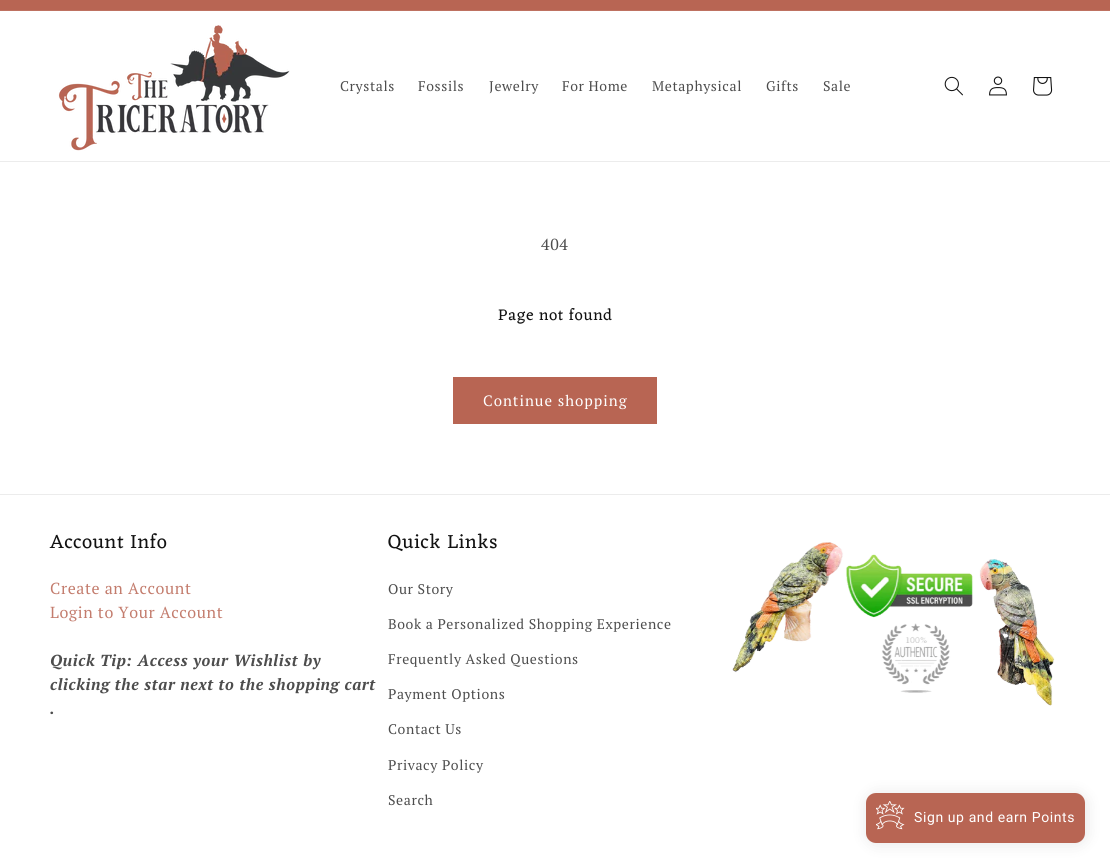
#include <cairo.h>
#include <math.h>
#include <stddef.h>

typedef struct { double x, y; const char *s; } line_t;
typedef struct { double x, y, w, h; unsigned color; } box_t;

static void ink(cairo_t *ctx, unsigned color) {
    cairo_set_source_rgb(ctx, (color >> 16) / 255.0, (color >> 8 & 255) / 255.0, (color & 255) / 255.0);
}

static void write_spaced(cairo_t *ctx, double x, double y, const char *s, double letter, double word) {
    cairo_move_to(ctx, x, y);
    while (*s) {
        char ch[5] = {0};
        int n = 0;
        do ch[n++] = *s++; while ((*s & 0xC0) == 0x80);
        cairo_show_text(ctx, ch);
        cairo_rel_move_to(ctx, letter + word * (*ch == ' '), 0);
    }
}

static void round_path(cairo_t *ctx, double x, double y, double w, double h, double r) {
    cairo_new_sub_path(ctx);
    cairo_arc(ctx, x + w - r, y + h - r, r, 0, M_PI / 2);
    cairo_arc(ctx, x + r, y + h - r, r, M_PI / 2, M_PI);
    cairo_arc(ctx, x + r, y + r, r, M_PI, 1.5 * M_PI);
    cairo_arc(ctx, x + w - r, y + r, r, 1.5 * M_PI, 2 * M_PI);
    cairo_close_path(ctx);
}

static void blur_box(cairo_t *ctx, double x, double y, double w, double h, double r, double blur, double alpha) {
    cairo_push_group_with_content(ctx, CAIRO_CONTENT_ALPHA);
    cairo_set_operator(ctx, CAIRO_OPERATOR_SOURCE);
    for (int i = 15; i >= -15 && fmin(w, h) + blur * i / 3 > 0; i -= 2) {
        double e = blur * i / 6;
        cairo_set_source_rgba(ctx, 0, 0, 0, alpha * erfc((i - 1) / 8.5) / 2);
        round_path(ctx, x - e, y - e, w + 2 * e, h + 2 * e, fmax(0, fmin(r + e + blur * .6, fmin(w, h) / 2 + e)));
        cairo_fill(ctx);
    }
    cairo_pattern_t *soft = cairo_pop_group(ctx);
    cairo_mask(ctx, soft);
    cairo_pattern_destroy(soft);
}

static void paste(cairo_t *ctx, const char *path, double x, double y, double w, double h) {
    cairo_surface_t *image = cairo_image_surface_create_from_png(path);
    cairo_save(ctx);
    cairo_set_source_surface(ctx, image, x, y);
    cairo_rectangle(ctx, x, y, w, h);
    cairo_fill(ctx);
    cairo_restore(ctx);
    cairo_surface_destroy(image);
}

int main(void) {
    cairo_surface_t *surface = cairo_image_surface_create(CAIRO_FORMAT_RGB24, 1110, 868);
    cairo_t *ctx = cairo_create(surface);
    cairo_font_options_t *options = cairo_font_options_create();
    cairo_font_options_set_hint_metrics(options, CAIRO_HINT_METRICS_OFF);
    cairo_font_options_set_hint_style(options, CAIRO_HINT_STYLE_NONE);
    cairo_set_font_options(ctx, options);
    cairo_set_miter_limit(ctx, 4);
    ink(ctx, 0xFFFFFF);
    cairo_paint(ctx);
    {
        static const box_t items[] = {
            {0, 0, 1110, 10, 0xB86553},
            {0, 10, 1110, 1, 0xBE7161},
            {0, 161, 1110, 1, 0xECECEC},
        };
        for (size_t i = 0; i < sizeof items / sizeof *items; i++) {
            ink(ctx, items[i].color);
            cairo_rectangle(ctx, items[i].x, items[i].y, items[i].w, items[i].h);
            cairo_fill(ctx);
        }
    }
    paste(ctx, "media/1.png", 58, 25, 232, 126);
    cairo_select_font_face(ctx, "PT Serif", CAIRO_FONT_SLANT_NORMAL, CAIRO_FONT_WEIGHT_NORMAL);
    cairo_set_font_size(ctx, 14);
    ink(ctx, 0x4D4D4D);
    {
        static const line_t items[] = {
            {340, 91, "Crystals"},
            {418, 91, "Fossils"},
            {489, 91, "Jewelry"},
            {562, 91, "For Home"},
            {652, 91, "Metaphysical"},
            {766, 91, "Gifts"},
            {823, 91, "Sale"},
        };
        for (size_t i = 0; i < sizeof items / sizeof *items; i++) {
            write_spaced(ctx, items[i].x, items[i].y, items[i].s, 0.6, 0);
        }
    }
    paste(ctx, "media/2.png", 944, 76, 19, 20);
    paste(ctx, "media/3.png", 989, 76, 18, 20);
    paste(ctx, "media/4.png", 1033, 77, 20, 19);
    cairo_set_font_size(ctx, 16);
    write_spaced(ctx, 541, 250, "404", 0.6, 0);
    cairo_select_font_face(ctx, "Eczar", CAIRO_FONT_SLANT_NORMAL, CAIRO_FONT_WEIGHT_NORMAL);
    ink(ctx, 0x121212);
    write_spaced(ctx, 498, 320, "Page not found", 0.7, 0);
    ink(ctx, 0xB86553);
    cairo_rectangle(ctx, 453, 377, 204, 47);
    cairo_fill(ctx);
    cairo_select_font_face(ctx, "PT Serif", CAIRO_FONT_SLANT_NORMAL, CAIRO_FONT_WEIGHT_NORMAL);
    cairo_set_font_size(ctx, 15);
    ink(ctx, 0xFFFFFF);
    write_spaced(ctx, 483, 406, "Continue shopping", 1, 0);
    ink(ctx, 0xECECEC);
    cairo_rectangle(ctx, 0, 494, 1110, 1);
    cairo_fill(ctx);
    cairo_select_font_face(ctx, "Eczar", CAIRO_FONT_SLANT_NORMAL, CAIRO_FONT_WEIGHT_NORMAL);
    cairo_set_font_size(ctx, 19.75);
    ink(ctx, 0x121212);
    write_spaced(ctx, 50, 548, "Account Info", 0.7, 0);
    cairo_select_font_face(ctx, "PT Serif", CAIRO_FONT_SLANT_NORMAL, CAIRO_FONT_WEIGHT_NORMAL);
    cairo_set_font_size(ctx, 16);
    ink(ctx, 0xC37C6D);
    write_spaced(ctx, 50, 594, "Create an Account", 0.6, 0);
    write_spaced(ctx, 50, 618, "Login to Your Account", 0.6, 0);
    cairo_select_font_face(ctx, "PT Serif", CAIRO_FONT_SLANT_ITALIC, CAIRO_FONT_WEIGHT_BOLD);
    ink(ctx, 0x4D4D4D);
    {
        static const line_t items[] = {
            {50, 666, "Quick Tip: Access your Wishlist by"},
            {50, 690, "clicking the star next to the shopping cart"},
            {50, 714, "."},
        };
        for (size_t i = 0; i < sizeof items / sizeof *items; i++) {
            write_spaced(ctx, items[i].x, items[i].y, items[i].s, 0.6, 0);
        }
    }
    cairo_select_font_face(ctx, "Eczar", CAIRO_FONT_SLANT_NORMAL, CAIRO_FONT_WEIGHT_NORMAL);
    cairo_set_font_size(ctx, 19.75);
    ink(ctx, 0x121212);
    write_spaced(ctx, 388, 548, "Quick Links", 0.7, 0);
    cairo_select_font_face(ctx, "PT Serif", CAIRO_FONT_SLANT_NORMAL, CAIRO_FONT_WEIGHT_NORMAL);
    cairo_set_font_size(ctx, 14);
    ink(ctx, 0x4D4D4D);
    {
        static const line_t items[] = {
            {388, 594, "Our Story"},
            {388, 629, "Book a Personalized Shopping Experience"},
            {388, 664, "Frequently Asked Questions"},
            {388, 699, "Payment Options"},
            {388, 734, "Contact Us"},
            {388, 770, "Privacy Policy"},
            {388, 805, "Search"},
        };
        for (size_t i = 0; i < sizeof items / sizeof *items; i++) {
            write_spaced(ctx, items[i].x, items[i].y, items[i].s, 0.6, 0);
        }
    }
    paste(ctx, "media/5.png", 732, 542, 323, 164);
    ink(ctx, 0x000000);
    blur_box(ctx, 867, 794, 219, 50, 10, 7.5, 0.1);
    ink(ctx, 0xB86553);
    round_path(ctx, 866, 793, 219, 50, 10);
    cairo_fill(ctx);
    paste(ctx, "media/6.png", 876, 801, 29, 29);
    cairo_select_font_face(ctx, "Roboto", CAIRO_FONT_SLANT_NORMAL, CAIRO_FONT_WEIGHT_NORMAL);
    ink(ctx, 0xFFFFFF);
    write_spaced(ctx, 914, 822, "Sign up and earn Points", 0.6, 0);
    cairo_surface_write_to_png(surface, "image.png");
    cairo_font_options_destroy(options);
    cairo_destroy(ctx);
    cairo_surface_destroy(surface);
    return 0;
}
